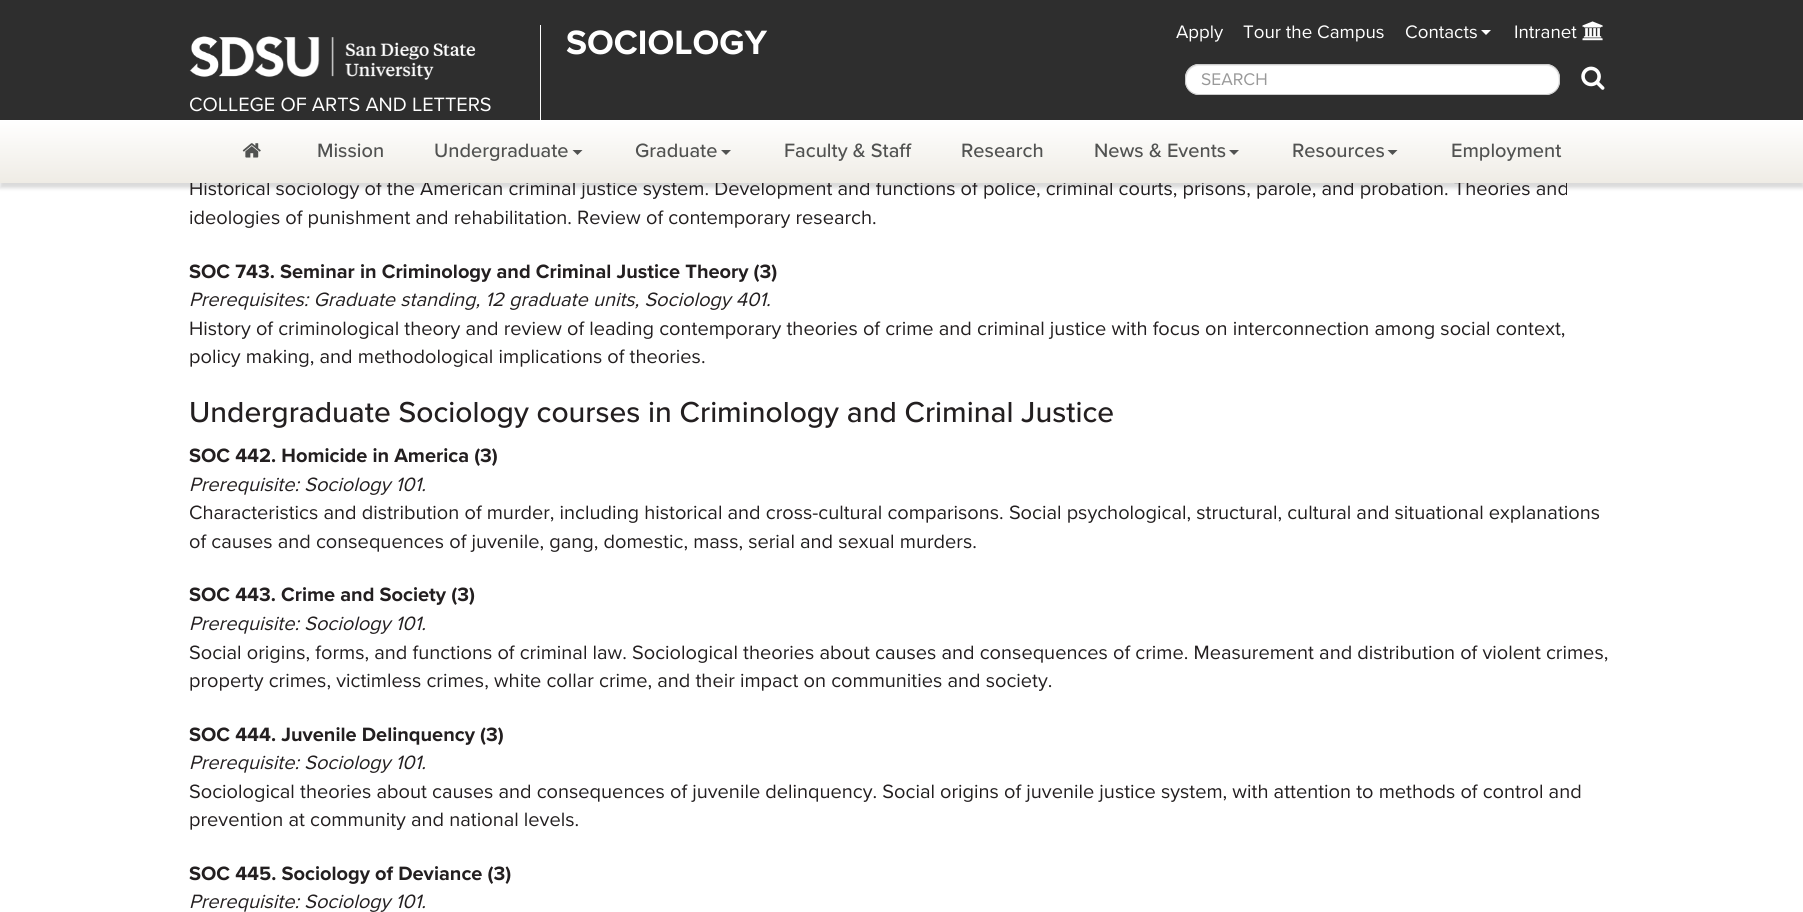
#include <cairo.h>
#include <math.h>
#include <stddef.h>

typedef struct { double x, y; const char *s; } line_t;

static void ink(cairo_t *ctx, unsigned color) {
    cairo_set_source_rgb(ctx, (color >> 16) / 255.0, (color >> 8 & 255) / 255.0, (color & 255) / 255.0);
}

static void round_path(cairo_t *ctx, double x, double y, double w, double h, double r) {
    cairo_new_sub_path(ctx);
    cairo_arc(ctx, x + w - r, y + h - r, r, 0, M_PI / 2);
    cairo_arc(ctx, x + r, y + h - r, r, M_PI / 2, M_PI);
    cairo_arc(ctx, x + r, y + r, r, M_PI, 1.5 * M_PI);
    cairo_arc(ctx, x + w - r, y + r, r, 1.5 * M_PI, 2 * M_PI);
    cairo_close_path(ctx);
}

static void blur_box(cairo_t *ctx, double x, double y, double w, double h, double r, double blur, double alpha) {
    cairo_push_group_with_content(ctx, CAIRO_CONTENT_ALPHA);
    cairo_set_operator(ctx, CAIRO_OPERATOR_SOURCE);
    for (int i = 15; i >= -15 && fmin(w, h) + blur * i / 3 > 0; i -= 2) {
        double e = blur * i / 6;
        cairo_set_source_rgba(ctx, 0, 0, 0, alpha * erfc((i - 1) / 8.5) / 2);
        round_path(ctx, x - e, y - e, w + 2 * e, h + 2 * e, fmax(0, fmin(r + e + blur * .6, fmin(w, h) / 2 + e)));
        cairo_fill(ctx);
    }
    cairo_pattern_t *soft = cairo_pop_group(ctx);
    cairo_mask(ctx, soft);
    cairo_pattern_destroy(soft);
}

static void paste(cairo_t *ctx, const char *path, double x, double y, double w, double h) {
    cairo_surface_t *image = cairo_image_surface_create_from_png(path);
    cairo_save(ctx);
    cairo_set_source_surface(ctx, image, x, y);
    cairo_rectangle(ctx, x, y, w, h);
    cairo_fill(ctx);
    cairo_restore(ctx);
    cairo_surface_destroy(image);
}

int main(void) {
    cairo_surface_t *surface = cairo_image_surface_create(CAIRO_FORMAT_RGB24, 1803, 912);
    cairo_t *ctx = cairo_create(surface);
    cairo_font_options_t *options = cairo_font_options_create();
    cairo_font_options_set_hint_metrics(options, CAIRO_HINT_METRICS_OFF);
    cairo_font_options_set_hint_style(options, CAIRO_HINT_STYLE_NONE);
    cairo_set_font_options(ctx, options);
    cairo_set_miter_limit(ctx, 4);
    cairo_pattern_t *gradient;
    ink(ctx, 0xFFFFFF);
    cairo_paint(ctx);
    ink(ctx, 0x2E2E2E);
    cairo_rectangle(ctx, 0, 0, 1803, 120);
    cairo_fill(ctx);
    cairo_select_font_face(ctx, "Proxima Nova", CAIRO_FONT_SLANT_NORMAL, CAIRO_FONT_WEIGHT_BOLD);
    cairo_set_font_size(ctx, 35);
    ink(ctx, 0xFFFFFF);
    cairo_move_to(ctx, 566, 54);
    cairo_show_text(ctx, "SOCIOLOGY");
    ink(ctx, 0x000000);
    blur_box(ctx, 0, 125, 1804, 63, 0, 2, 0.15);
    ink(ctx, 0xFFFFFF);
    cairo_rectangle(ctx, 540, 25, 1, 95);
    cairo_fill(ctx);
    paste(ctx, "media/1.png", 189, 36, 287, 44);
    cairo_select_font_face(ctx, "Proxima Nova", CAIRO_FONT_SLANT_NORMAL, CAIRO_FONT_WEIGHT_NORMAL);
    cairo_set_font_size(ctx, 20);
    cairo_move_to(ctx, 189, 111);
    cairo_show_text(ctx, "COLLEGE OF ARTS AND LETTERS");
    cairo_set_font_size(ctx, 18.75);
    {
        static const line_t items[] = {
            {1176, 38, "Apply"},
            {1243, 38, "Tour the Campus"},
            {1405, 38, "Contacts"},
        };
        for (size_t i = 0; i < sizeof items / sizeof *items; i++) {
            cairo_move_to(ctx, items[i].x, items[i].y);
            cairo_show_text(ctx, items[i].s);
        }
    }
    cairo_new_path(ctx);
    cairo_move_to(ctx, 1481, 30);
    cairo_line_to(ctx, 1491, 30);
    cairo_line_to(ctx, 1486, 35);
    cairo_close_path(ctx);
    cairo_fill(ctx);
    cairo_move_to(ctx, 1514, 38);
    cairo_show_text(ctx, "Intranet");
    paste(ctx, "media/2.png", 1582, 21, 21, 20);
    round_path(ctx, 1185, 64, 375, 31, 14);
    cairo_fill(ctx);
    ink(ctx, 0xECECEC);
    cairo_new_path(ctx);
    cairo_move_to(ctx, 1199, 66);
    cairo_line_to(ctx, 1546, 66);
    cairo_curve_to(ctx, 1552, 66, 1557, 70, 1558, 76);
    cairo_curve_to(ctx, 1559, 80, 1559, 85, 1557, 88);
    cairo_curve_to(ctx, 1563, 79, 1557, 65, 1546, 65);
    cairo_line_to(ctx, 1199, 65);
    cairo_curve_to(ctx, 1193, 65, 1187, 69, 1186, 75);
    cairo_curve_to(ctx, 1186, 79, 1186, 83, 1187, 86);
    cairo_curve_to(ctx, 1184, 77, 1189, 66, 1199, 66);
    cairo_close_path(ctx);
    cairo_fill(ctx);
    round_path(ctx, 1185.5, 64.5, 374, 30, 13.5);
    ink(ctx, 0xCCCCCC);
    cairo_set_line_width(ctx, 1);
    cairo_stroke(ctx);
    cairo_set_font_size(ctx, 17.5);
    ink(ctx, 0x999999);
    cairo_move_to(ctx, 1201, 85);
    cairo_show_text(ctx, "SEARCH");
    paste(ctx, "media/3.png", 1581, 66, 24, 24);
    cairo_set_font_size(ctx, 20);
    ink(ctx, 0x231F20);
    cairo_move_to(ctx, 189, 195);
    cairo_show_text(ctx, "Historical sociology of the American criminal justice system. Development and functions of police, criminal courts, prisons, parole, and probation. Theories and");
    gradient = cairo_pattern_create_linear(902, 120, 902, 183);
    cairo_pattern_add_color_stop_rgba(gradient, 0, 1, 1, 1, 1);
    cairo_pattern_add_color_stop_rgba(gradient, 1, 0.937, 0.925, 0.898, 1);
    cairo_set_source(ctx, gradient);
    cairo_pattern_destroy(gradient);
    cairo_rectangle(ctx, 0, 122, 1803, 61);
    cairo_fill(ctx);
    paste(ctx, "media/4.png", 242, 143, 19, 15);
    cairo_select_font_face(ctx, "Proxima Nova Medium", CAIRO_FONT_SLANT_NORMAL, CAIRO_FONT_WEIGHT_NORMAL);
    ink(ctx, 0x515251);
    cairo_move_to(ctx, 317, 157);
    cairo_show_text(ctx, "Mission");
    cairo_move_to(ctx, 434, 157);
    cairo_show_text(ctx, "Undergraduate");
    cairo_new_path(ctx);
    cairo_move_to(ctx, 572.5, 150);
    cairo_line_to(ctx, 582.5, 150);
    cairo_line_to(ctx, 577.5, 155);
    cairo_close_path(ctx);
    cairo_fill(ctx);
    cairo_move_to(ctx, 635, 157);
    cairo_show_text(ctx, "Graduate");
    cairo_new_path(ctx);
    cairo_move_to(ctx, 721, 150);
    cairo_line_to(ctx, 731, 150);
    cairo_line_to(ctx, 726, 155);
    cairo_close_path(ctx);
    cairo_fill(ctx);
    {
        static const line_t items[] = {
            {784, 157, "Faculty & Staff"},
            {961, 157, "Research"},
            {1094, 157, "News & Events"},
        };
        for (size_t i = 0; i < sizeof items / sizeof *items; i++) {
            cairo_move_to(ctx, items[i].x, items[i].y);
            cairo_show_text(ctx, items[i].s);
        }
    }
    cairo_new_path(ctx);
    cairo_move_to(ctx, 1229, 150);
    cairo_line_to(ctx, 1239, 150);
    cairo_line_to(ctx, 1234, 155);
    cairo_close_path(ctx);
    cairo_fill(ctx);
    cairo_move_to(ctx, 1292, 157);
    cairo_show_text(ctx, "Resources");
    cairo_new_path(ctx);
    cairo_move_to(ctx, 1387.5, 150);
    cairo_line_to(ctx, 1397.5, 150);
    cairo_line_to(ctx, 1392.5, 155);
    cairo_close_path(ctx);
    cairo_fill(ctx);
    cairo_move_to(ctx, 1451, 157);
    cairo_show_text(ctx, "Employment");
    cairo_select_font_face(ctx, "Proxima Nova", CAIRO_FONT_SLANT_NORMAL, CAIRO_FONT_WEIGHT_NORMAL);
    ink(ctx, 0x231F20);
    cairo_move_to(ctx, 189, 224);
    cairo_show_text(ctx, "ideologies of punishment and rehabilitation. Review of contemporary research.");
    cairo_select_font_face(ctx, "Proxima Nova", CAIRO_FONT_SLANT_NORMAL, CAIRO_FONT_WEIGHT_BOLD);
    cairo_move_to(ctx, 189, 278);
    cairo_show_text(ctx, "SOC 743. Seminar in Criminology and Criminal Justice Theory (3)");
    cairo_select_font_face(ctx, "Proxima Nova", CAIRO_FONT_SLANT_ITALIC, CAIRO_FONT_WEIGHT_NORMAL);
    cairo_move_to(ctx, 189, 306);
    cairo_show_text(ctx, "Prerequisites: Graduate standing, 12 graduate units, Sociology 401.");
    cairo_select_font_face(ctx, "Proxima Nova", CAIRO_FONT_SLANT_NORMAL, CAIRO_FONT_WEIGHT_NORMAL);
    cairo_move_to(ctx, 189, 335);
    cairo_show_text(ctx, "History of criminological theory and review of leading contemporary theories of crime and criminal justice with focus on interconnection among social context,");
    cairo_move_to(ctx, 189, 363);
    cairo_show_text(ctx, "policy making, and methodological implications of theories.");
    cairo_select_font_face(ctx, "Proxima Nova Medium", CAIRO_FONT_SLANT_NORMAL, CAIRO_FONT_WEIGHT_NORMAL);
    cairo_set_font_size(ctx, 30);
    cairo_move_to(ctx, 189, 422);
    cairo_show_text(ctx, "Undergraduate Sociology courses in Criminology and Criminal Justice");
    cairo_select_font_face(ctx, "Proxima Nova", CAIRO_FONT_SLANT_NORMAL, CAIRO_FONT_WEIGHT_BOLD);
    cairo_set_font_size(ctx, 20);
    cairo_move_to(ctx, 189, 462);
    cairo_show_text(ctx, "SOC 442. Homicide in America (3)");
    cairo_select_font_face(ctx, "Proxima Nova", CAIRO_FONT_SLANT_ITALIC, CAIRO_FONT_WEIGHT_NORMAL);
    cairo_move_to(ctx, 189, 491);
    cairo_show_text(ctx, "Prerequisite: Sociology 101.");
    cairo_select_font_face(ctx, "Proxima Nova", CAIRO_FONT_SLANT_NORMAL, CAIRO_FONT_WEIGHT_NORMAL);
    cairo_move_to(ctx, 189, 519);
    cairo_show_text(ctx, "Characteristics and distribution of murder, including historical and cross-cultural comparisons. Social psychological, structural, cultural and situational explanations");
    cairo_move_to(ctx, 189, 548);
    cairo_show_text(ctx, "of causes and consequences of juvenile, gang, domestic, mass, serial and sexual murders.");
    cairo_select_font_face(ctx, "Proxima Nova", CAIRO_FONT_SLANT_NORMAL, CAIRO_FONT_WEIGHT_BOLD);
    cairo_move_to(ctx, 189, 601);
    cairo_show_text(ctx, "SOC 443. Crime and Society (3)");
    cairo_select_font_face(ctx, "Proxima Nova", CAIRO_FONT_SLANT_ITALIC, CAIRO_FONT_WEIGHT_NORMAL);
    cairo_move_to(ctx, 189, 630);
    cairo_show_text(ctx, "Prerequisite: Sociology 101.");
    cairo_select_font_face(ctx, "Proxima Nova", CAIRO_FONT_SLANT_NORMAL, CAIRO_FONT_WEIGHT_NORMAL);
    cairo_move_to(ctx, 189, 659);
    cairo_show_text(ctx, "Social origins, forms, and functions of criminal law. Sociological theories about causes and consequences of crime. Measurement and distribution of violent crimes,");
    cairo_move_to(ctx, 189, 687);
    cairo_show_text(ctx, "property crimes, victimless crimes, white collar crime, and their impact on communities and society.");
    cairo_select_font_face(ctx, "Proxima Nova", CAIRO_FONT_SLANT_NORMAL, CAIRO_FONT_WEIGHT_BOLD);
    cairo_move_to(ctx, 189, 741);
    cairo_show_text(ctx, "SOC 444. Juvenile Delinquency (3)");
    cairo_select_font_face(ctx, "Proxima Nova", CAIRO_FONT_SLANT_ITALIC, CAIRO_FONT_WEIGHT_NORMAL);
    cairo_move_to(ctx, 189, 769);
    cairo_show_text(ctx, "Prerequisite: Sociology 101.");
    cairo_select_font_face(ctx, "Proxima Nova", CAIRO_FONT_SLANT_NORMAL, CAIRO_FONT_WEIGHT_NORMAL);
    cairo_move_to(ctx, 189, 798);
    cairo_show_text(ctx, "Sociological theories about causes and consequences of juvenile delinquency. Social origins of juvenile justice system, with attention to methods of control and");
    cairo_move_to(ctx, 189, 826);
    cairo_show_text(ctx, "prevention at community and national levels.");
    cairo_select_font_face(ctx, "Proxima Nova", CAIRO_FONT_SLANT_NORMAL, CAIRO_FONT_WEIGHT_BOLD);
    cairo_move_to(ctx, 189, 880);
    cairo_show_text(ctx, "SOC 445. Sociology of Deviance (3)");
    cairo_select_font_face(ctx, "Proxima Nova", CAIRO_FONT_SLANT_ITALIC, CAIRO_FONT_WEIGHT_NORMAL);
    cairo_move_to(ctx, 189, 908);
    cairo_show_text(ctx, "Prerequisite: Sociology 101.");
    cairo_surface_write_to_png(surface, "image.png");
    cairo_font_options_destroy(options);
    cairo_destroy(ctx);
    cairo_surface_destroy(surface);
    return 0;
}
